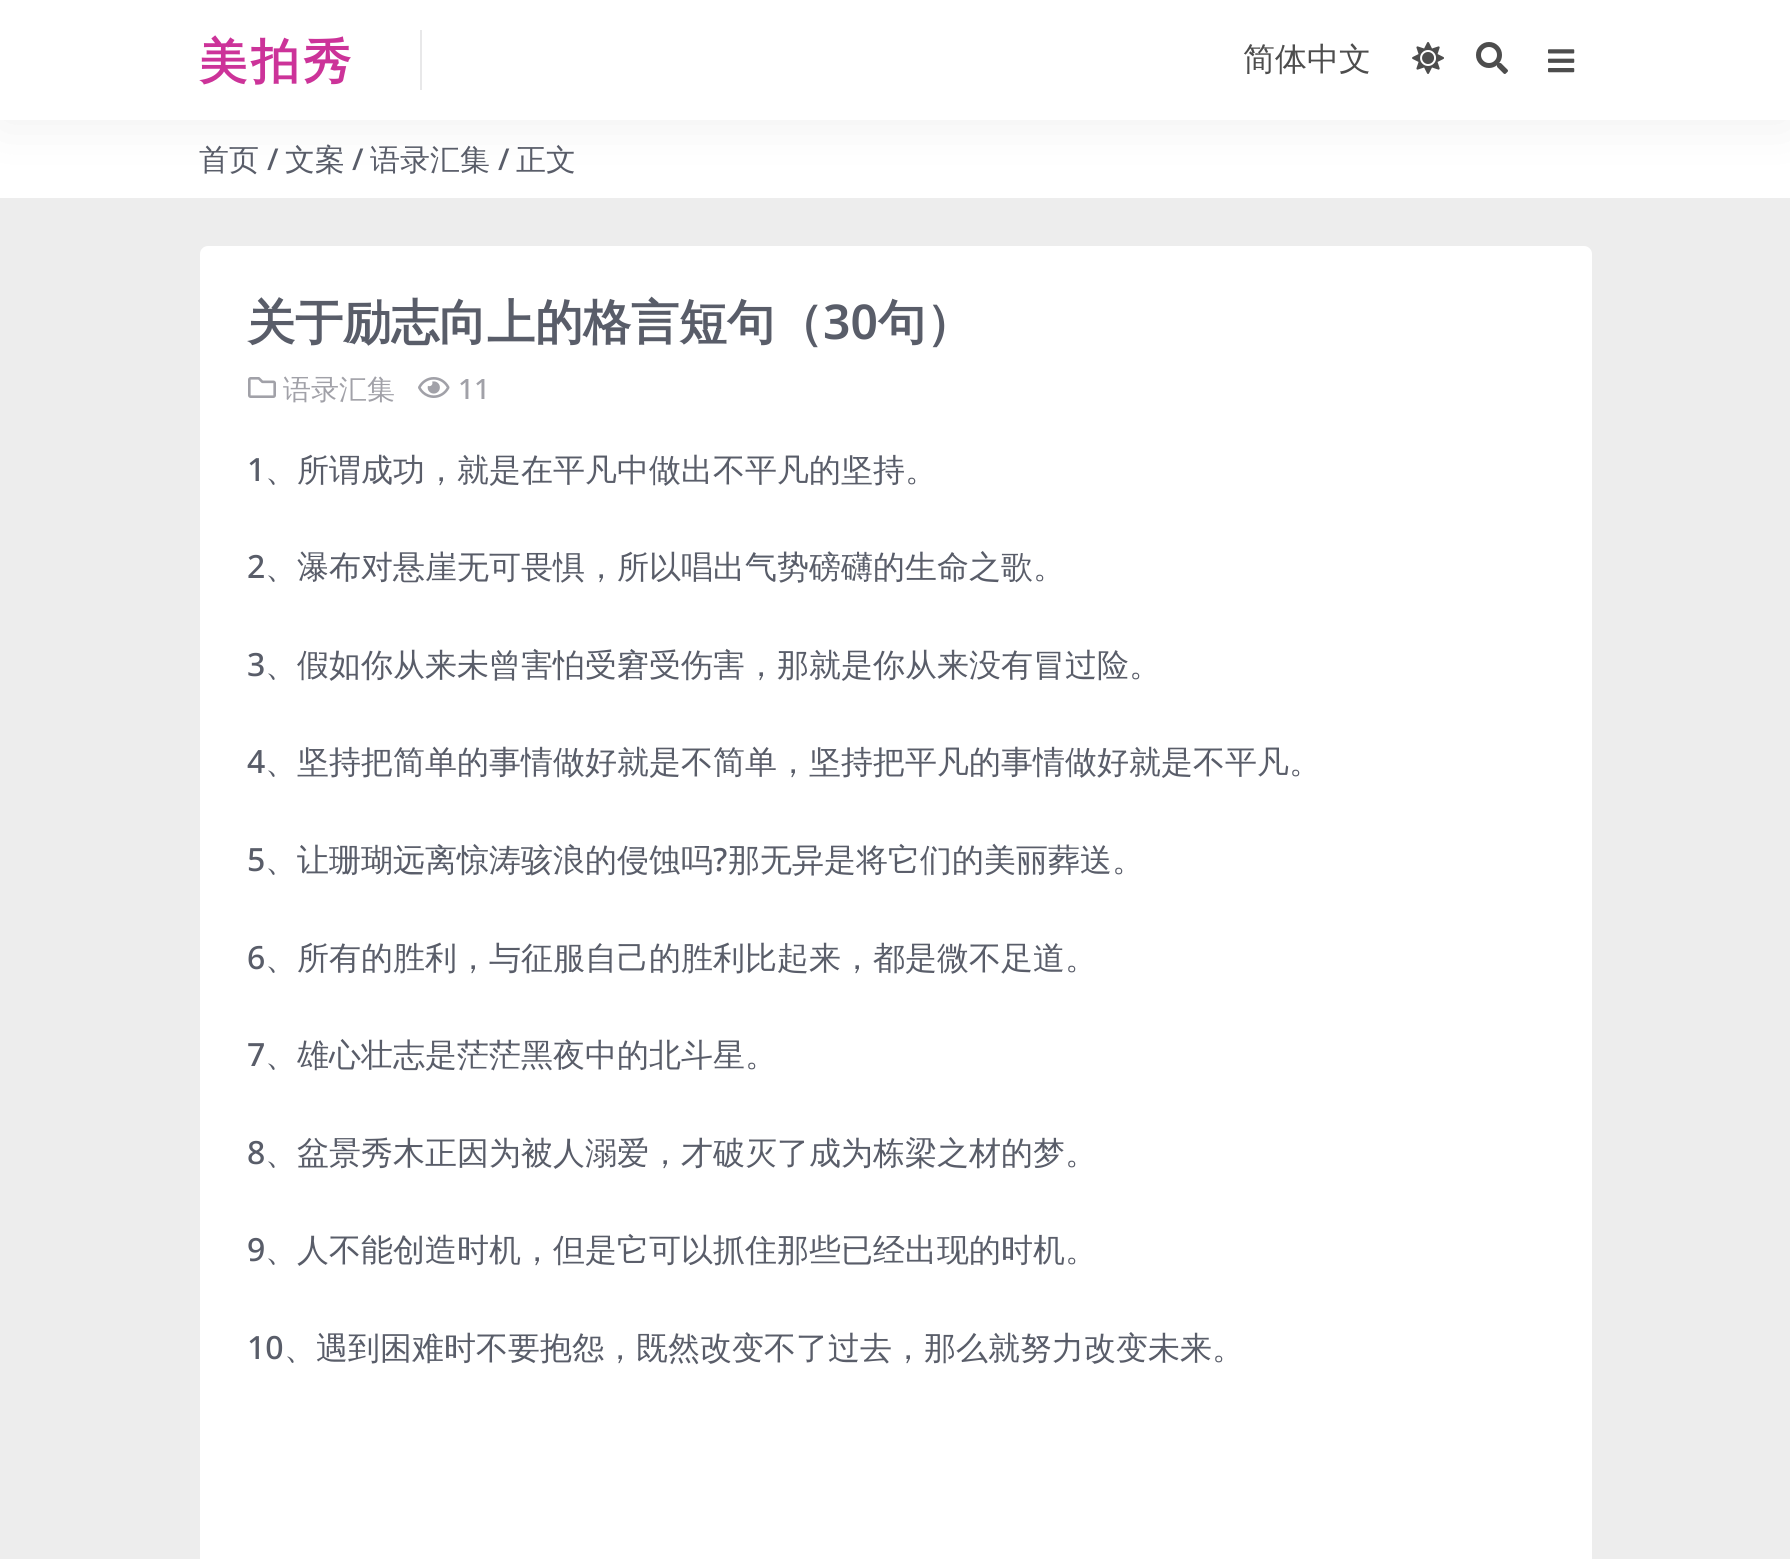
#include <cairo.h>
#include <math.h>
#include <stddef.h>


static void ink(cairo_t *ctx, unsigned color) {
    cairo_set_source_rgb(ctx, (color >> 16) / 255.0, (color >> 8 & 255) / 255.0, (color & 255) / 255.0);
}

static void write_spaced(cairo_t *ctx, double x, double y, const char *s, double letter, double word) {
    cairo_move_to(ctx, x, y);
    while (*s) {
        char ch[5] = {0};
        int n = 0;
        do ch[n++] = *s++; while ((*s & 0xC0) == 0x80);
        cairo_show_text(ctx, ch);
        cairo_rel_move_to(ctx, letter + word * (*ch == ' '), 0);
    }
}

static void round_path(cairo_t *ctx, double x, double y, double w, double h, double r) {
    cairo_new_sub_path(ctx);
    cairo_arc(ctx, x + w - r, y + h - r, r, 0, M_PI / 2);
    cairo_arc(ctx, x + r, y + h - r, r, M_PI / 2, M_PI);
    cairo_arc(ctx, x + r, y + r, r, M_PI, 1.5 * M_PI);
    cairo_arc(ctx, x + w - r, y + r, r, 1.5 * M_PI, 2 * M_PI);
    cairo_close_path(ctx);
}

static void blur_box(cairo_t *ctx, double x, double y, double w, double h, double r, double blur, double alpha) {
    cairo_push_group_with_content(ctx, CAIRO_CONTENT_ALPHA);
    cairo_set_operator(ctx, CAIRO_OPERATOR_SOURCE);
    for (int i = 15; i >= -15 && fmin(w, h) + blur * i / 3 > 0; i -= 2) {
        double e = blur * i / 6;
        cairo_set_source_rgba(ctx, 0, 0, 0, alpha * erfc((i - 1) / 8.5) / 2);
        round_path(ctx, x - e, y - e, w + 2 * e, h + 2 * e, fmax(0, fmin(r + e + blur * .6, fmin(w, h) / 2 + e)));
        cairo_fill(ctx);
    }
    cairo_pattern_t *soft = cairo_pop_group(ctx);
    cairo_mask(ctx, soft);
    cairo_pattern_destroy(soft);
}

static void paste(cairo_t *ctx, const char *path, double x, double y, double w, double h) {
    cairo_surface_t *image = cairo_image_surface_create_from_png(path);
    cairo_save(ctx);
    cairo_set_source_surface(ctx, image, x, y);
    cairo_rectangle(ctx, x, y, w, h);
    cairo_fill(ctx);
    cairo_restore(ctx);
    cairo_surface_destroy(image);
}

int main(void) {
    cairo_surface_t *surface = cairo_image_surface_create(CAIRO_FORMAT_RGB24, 1790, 1559);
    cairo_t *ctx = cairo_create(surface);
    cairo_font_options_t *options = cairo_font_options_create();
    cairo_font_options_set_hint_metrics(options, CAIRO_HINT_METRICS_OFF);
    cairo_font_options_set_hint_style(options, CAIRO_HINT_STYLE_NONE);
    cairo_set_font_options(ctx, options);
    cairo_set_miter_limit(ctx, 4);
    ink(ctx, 0xEDEDED);
    cairo_paint(ctx);
    ink(ctx, 0xFFFFFF);
    cairo_rectangle(ctx, 0, 120, 1790, 78);
    cairo_fill(ctx);
    ink(ctx, 0x000000);
    blur_box(ctx, 0, 0, 1790, 120, 0, 30, 0.07);
    ink(ctx, 0xFFFFFF);
    cairo_rectangle(ctx, 0, 0, 1790, 120);
    cairo_fill(ctx);
    cairo_select_font_face(ctx, "WenQuanYi Zen Hei", CAIRO_FONT_SLANT_NORMAL, CAIRO_FONT_WEIGHT_BOLD);
    cairo_set_font_size(ctx, 48);
    ink(ctx, 0xCC3399);
    write_spaced(ctx, 199, 78, "美拍秀", 4, 0);
    ink(ctx, 0xE8E8E9);
    cairo_rectangle(ctx, 420, 30, 2, 60);
    cairo_fill(ctx);
    cairo_select_font_face(ctx, "WenQuanYi Zen Hei Medium", CAIRO_FONT_SLANT_NORMAL, CAIRO_FONT_WEIGHT_NORMAL);
    cairo_set_font_size(ctx, 32);
    ink(ctx, 0x4D4D4D);
    cairo_move_to(ctx, 1243, 70);
    cairo_show_text(ctx, "简体中文");
    paste(ctx, "media/1.png", 1412, 42, 32, 32);
    paste(ctx, "media/2.png", 1476, 42, 32, 32);
    paste(ctx, "media/3.png", 1548, 49, 27, 24);
    cairo_set_font_size(ctx, 30);
    ink(ctx, 0x595D69);
    cairo_move_to(ctx, 199, 170);
    cairo_show_text(ctx, "首页");
    cairo_select_font_face(ctx, "Noto Sans Medium", CAIRO_FONT_SLANT_NORMAL, CAIRO_FONT_WEIGHT_NORMAL);
    cairo_move_to(ctx, 267, 170);
    cairo_show_text(ctx, "/");
    cairo_select_font_face(ctx, "WenQuanYi Zen Hei Medium", CAIRO_FONT_SLANT_NORMAL, CAIRO_FONT_WEIGHT_NORMAL);
    cairo_move_to(ctx, 285, 170);
    cairo_show_text(ctx, "文案");
    cairo_select_font_face(ctx, "Noto Sans Medium", CAIRO_FONT_SLANT_NORMAL, CAIRO_FONT_WEIGHT_NORMAL);
    cairo_move_to(ctx, 352, 170);
    cairo_show_text(ctx, "/");
    cairo_select_font_face(ctx, "WenQuanYi Zen Hei Medium", CAIRO_FONT_SLANT_NORMAL, CAIRO_FONT_WEIGHT_NORMAL);
    cairo_move_to(ctx, 370, 170);
    cairo_show_text(ctx, "语录汇集");
    cairo_select_font_face(ctx, "Noto Sans Medium", CAIRO_FONT_SLANT_NORMAL, CAIRO_FONT_WEIGHT_NORMAL);
    cairo_move_to(ctx, 498, 170);
    cairo_show_text(ctx, "/");
    cairo_select_font_face(ctx, "WenQuanYi Zen Hei Medium", CAIRO_FONT_SLANT_NORMAL, CAIRO_FONT_WEIGHT_NORMAL);
    cairo_move_to(ctx, 516, 170);
    cairo_show_text(ctx, "正文");
    ink(ctx, 0xFFFFFF);
    round_path(ctx, 200, 246, 1392, 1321, 8);
    cairo_fill(ctx);
    cairo_select_font_face(ctx, "WenQuanYi Zen Hei", CAIRO_FONT_SLANT_NORMAL, CAIRO_FONT_WEIGHT_BOLD);
    cairo_set_font_size(ctx, 48);
    ink(ctx, 0x595D69);
    cairo_move_to(ctx, 247, 339);
    cairo_show_text(ctx, "关于励志向上的格言短句（");
    cairo_select_font_face(ctx, "Noto Sans SemiBold", CAIRO_FONT_SLANT_NORMAL, CAIRO_FONT_WEIGHT_NORMAL);
    cairo_move_to(ctx, 823, 339);
    cairo_show_text(ctx, "30");
    cairo_select_font_face(ctx, "WenQuanYi Zen Hei", CAIRO_FONT_SLANT_NORMAL, CAIRO_FONT_WEIGHT_BOLD);
    cairo_move_to(ctx, 878, 339);
    cairo_show_text(ctx, "句）");
    paste(ctx, "media/4.png", 248, 377, 28, 21);
    cairo_select_font_face(ctx, "WenQuanYi Zen Hei Medium", CAIRO_FONT_SLANT_NORMAL, CAIRO_FONT_WEIGHT_NORMAL);
    cairo_set_font_size(ctx, 28);
    ink(ctx, 0xA1A1A8);
    cairo_move_to(ctx, 283, 399);
    cairo_show_text(ctx, "语录汇集");
    paste(ctx, "media/5.png", 418, 377, 32, 21);
    cairo_select_font_face(ctx, "Noto Sans Medium", CAIRO_FONT_SLANT_NORMAL, CAIRO_FONT_WEIGHT_NORMAL);
    cairo_move_to(ctx, 458, 399);
    cairo_show_text(ctx, "11");
    cairo_set_font_size(ctx, 32);
    ink(ctx, 0x595D69);
    cairo_move_to(ctx, 247, 481);
    cairo_show_text(ctx, "1");
    cairo_select_font_face(ctx, "WenQuanYi Zen Hei Medium", CAIRO_FONT_SLANT_NORMAL, CAIRO_FONT_WEIGHT_NORMAL);
    cairo_move_to(ctx, 265, 481);
    cairo_show_text(ctx, "、所谓成功，就是在平凡中做出不平凡的坚持。");
    cairo_select_font_face(ctx, "Noto Sans Medium", CAIRO_FONT_SLANT_NORMAL, CAIRO_FONT_WEIGHT_NORMAL);
    cairo_move_to(ctx, 247, 578);
    cairo_show_text(ctx, "2");
    cairo_select_font_face(ctx, "WenQuanYi Zen Hei Medium", CAIRO_FONT_SLANT_NORMAL, CAIRO_FONT_WEIGHT_NORMAL);
    cairo_move_to(ctx, 265, 578);
    cairo_show_text(ctx, "、瀑布对悬崖无可畏惧，所以唱出气势磅礴的生命之歌。");
    cairo_select_font_face(ctx, "Noto Sans Medium", CAIRO_FONT_SLANT_NORMAL, CAIRO_FONT_WEIGHT_NORMAL);
    cairo_move_to(ctx, 247, 676);
    cairo_show_text(ctx, "3");
    cairo_select_font_face(ctx, "WenQuanYi Zen Hei Medium", CAIRO_FONT_SLANT_NORMAL, CAIRO_FONT_WEIGHT_NORMAL);
    cairo_move_to(ctx, 265, 676);
    cairo_show_text(ctx, "、假如你从来未曾害怕受窘受伤害，那就是你从来没有冒过险。");
    cairo_select_font_face(ctx, "Noto Sans Medium", CAIRO_FONT_SLANT_NORMAL, CAIRO_FONT_WEIGHT_NORMAL);
    cairo_move_to(ctx, 247, 773);
    cairo_show_text(ctx, "4");
    cairo_select_font_face(ctx, "WenQuanYi Zen Hei Medium", CAIRO_FONT_SLANT_NORMAL, CAIRO_FONT_WEIGHT_NORMAL);
    cairo_move_to(ctx, 265, 773);
    cairo_show_text(ctx, "、坚持把简单的事情做好就是不简单，坚持把平凡的事情做好就是不平凡。");
    cairo_select_font_face(ctx, "Noto Sans Medium", CAIRO_FONT_SLANT_NORMAL, CAIRO_FONT_WEIGHT_NORMAL);
    cairo_move_to(ctx, 247, 871);
    cairo_show_text(ctx, "5");
    cairo_select_font_face(ctx, "WenQuanYi Zen Hei Medium", CAIRO_FONT_SLANT_NORMAL, CAIRO_FONT_WEIGHT_NORMAL);
    cairo_move_to(ctx, 265, 871);
    cairo_show_text(ctx, "、让珊瑚远离惊涛骇浪的侵蚀吗");
    cairo_select_font_face(ctx, "Noto Sans Medium", CAIRO_FONT_SLANT_NORMAL, CAIRO_FONT_WEIGHT_NORMAL);
    cairo_move_to(ctx, 713, 871);
    cairo_show_text(ctx, "?");
    cairo_select_font_face(ctx, "WenQuanYi Zen Hei Medium", CAIRO_FONT_SLANT_NORMAL, CAIRO_FONT_WEIGHT_NORMAL);
    cairo_move_to(ctx, 728, 871);
    cairo_show_text(ctx, "那无异是将它们的美丽葬送。");
    cairo_select_font_face(ctx, "Noto Sans Medium", CAIRO_FONT_SLANT_NORMAL, CAIRO_FONT_WEIGHT_NORMAL);
    cairo_move_to(ctx, 247, 969);
    cairo_show_text(ctx, "6");
    cairo_select_font_face(ctx, "WenQuanYi Zen Hei Medium", CAIRO_FONT_SLANT_NORMAL, CAIRO_FONT_WEIGHT_NORMAL);
    cairo_move_to(ctx, 265, 969);
    cairo_show_text(ctx, "、所有的胜利，与征服自己的胜利比起来，都是微不足道。");
    cairo_select_font_face(ctx, "Noto Sans Medium", CAIRO_FONT_SLANT_NORMAL, CAIRO_FONT_WEIGHT_NORMAL);
    cairo_move_to(ctx, 247, 1066);
    cairo_show_text(ctx, "7");
    cairo_select_font_face(ctx, "WenQuanYi Zen Hei Medium", CAIRO_FONT_SLANT_NORMAL, CAIRO_FONT_WEIGHT_NORMAL);
    cairo_move_to(ctx, 265, 1066);
    cairo_show_text(ctx, "、雄心壮志是茫茫黑夜中的北斗星。");
    cairo_select_font_face(ctx, "Noto Sans Medium", CAIRO_FONT_SLANT_NORMAL, CAIRO_FONT_WEIGHT_NORMAL);
    cairo_move_to(ctx, 247, 1164);
    cairo_show_text(ctx, "8");
    cairo_select_font_face(ctx, "WenQuanYi Zen Hei Medium", CAIRO_FONT_SLANT_NORMAL, CAIRO_FONT_WEIGHT_NORMAL);
    cairo_move_to(ctx, 265, 1164);
    cairo_show_text(ctx, "、盆景秀木正因为被人溺爱，才破灭了成为栋梁之材的梦。");
    cairo_select_font_face(ctx, "Noto Sans Medium", CAIRO_FONT_SLANT_NORMAL, CAIRO_FONT_WEIGHT_NORMAL);
    cairo_move_to(ctx, 247, 1261);
    cairo_show_text(ctx, "9");
    cairo_select_font_face(ctx, "WenQuanYi Zen Hei Medium", CAIRO_FONT_SLANT_NORMAL, CAIRO_FONT_WEIGHT_NORMAL);
    cairo_move_to(ctx, 265, 1261);
    cairo_show_text(ctx, "、人不能创造时机，但是它可以抓住那些已经出现的时机。");
    cairo_select_font_face(ctx, "Noto Sans Medium", CAIRO_FONT_SLANT_NORMAL, CAIRO_FONT_WEIGHT_NORMAL);
    cairo_move_to(ctx, 247, 1359);
    cairo_show_text(ctx, "10");
    cairo_select_font_face(ctx, "WenQuanYi Zen Hei Medium", CAIRO_FONT_SLANT_NORMAL, CAIRO_FONT_WEIGHT_NORMAL);
    cairo_move_to(ctx, 284, 1359);
    cairo_show_text(ctx, "、遇到困难时不要抱怨，既然改变不了过去，那么就努力改变未来。");
    cairo_surface_write_to_png(surface, "image.png");
    cairo_font_options_destroy(options);
    cairo_destroy(ctx);
    cairo_surface_destroy(surface);
    return 0;
}
